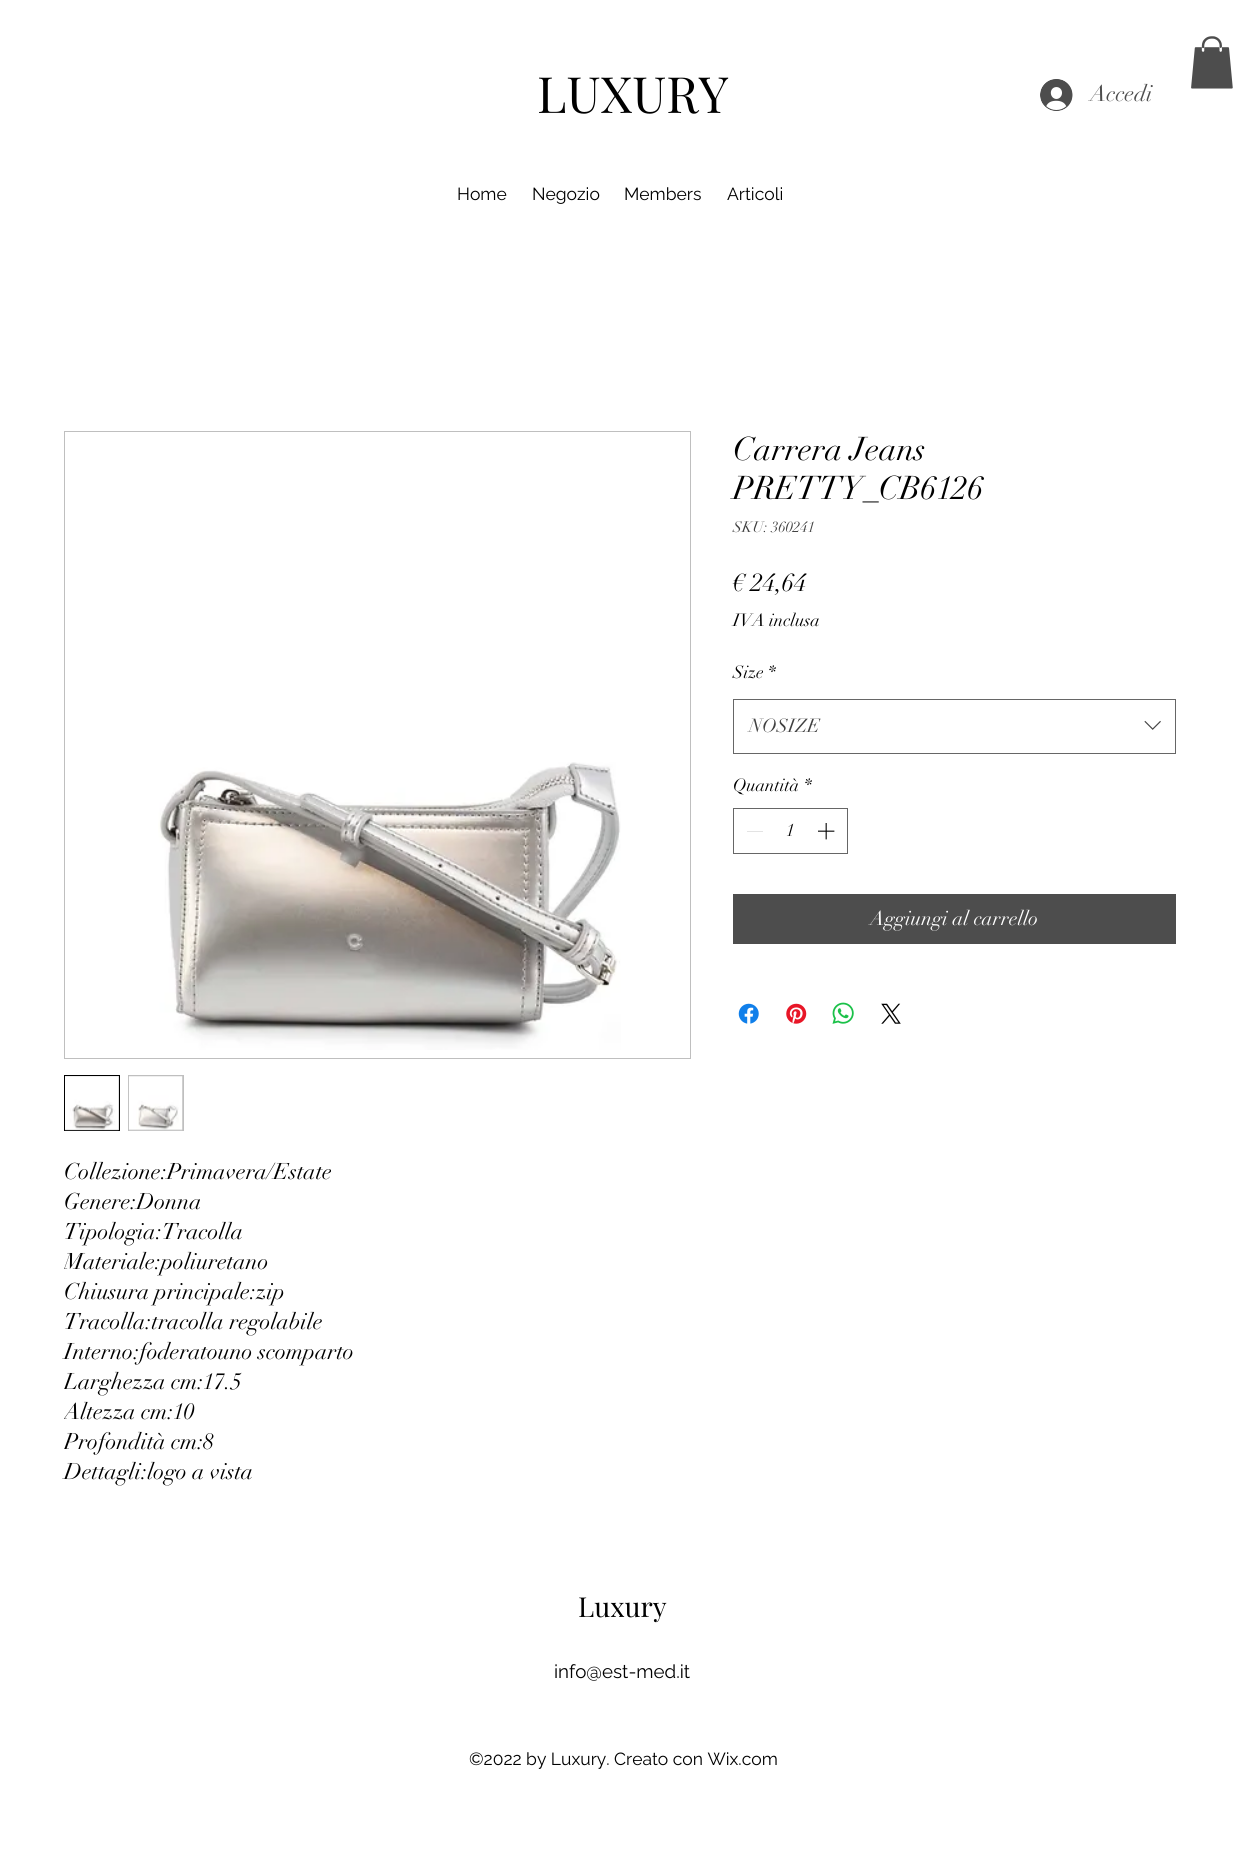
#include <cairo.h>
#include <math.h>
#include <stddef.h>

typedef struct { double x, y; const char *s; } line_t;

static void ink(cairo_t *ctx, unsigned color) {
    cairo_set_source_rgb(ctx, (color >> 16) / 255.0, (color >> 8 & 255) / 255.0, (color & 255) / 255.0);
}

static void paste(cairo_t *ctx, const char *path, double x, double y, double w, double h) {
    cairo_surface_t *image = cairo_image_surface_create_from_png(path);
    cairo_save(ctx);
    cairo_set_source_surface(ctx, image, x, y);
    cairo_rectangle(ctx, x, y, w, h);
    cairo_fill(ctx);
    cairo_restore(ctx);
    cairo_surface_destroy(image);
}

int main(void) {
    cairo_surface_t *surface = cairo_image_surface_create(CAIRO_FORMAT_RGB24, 1239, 1856);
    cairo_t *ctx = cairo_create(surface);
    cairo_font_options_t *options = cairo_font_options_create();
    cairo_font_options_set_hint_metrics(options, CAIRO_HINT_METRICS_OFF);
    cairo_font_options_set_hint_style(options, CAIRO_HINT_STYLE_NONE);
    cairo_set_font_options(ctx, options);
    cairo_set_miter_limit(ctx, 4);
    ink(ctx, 0xFFFFFF);
    cairo_paint(ctx);
    paste(ctx, "media/1.png", 1191, 36, 42, 53);
    cairo_select_font_face(ctx, "Playfair Display", CAIRO_FONT_SLANT_NORMAL, CAIRO_FONT_WEIGHT_NORMAL);
    cairo_set_font_size(ctx, 50);
    ink(ctx, 0x000000);
    cairo_move_to(ctx, 537, 113);
    cairo_show_text(ctx, "LUXURY");
    paste(ctx, "media/2.png", 1040, 79, 33, 32);
    cairo_select_font_face(ctx, "didot", CAIRO_FONT_SLANT_NORMAL, CAIRO_FONT_WEIGHT_NORMAL);
    cairo_set_font_size(ctx, 22.5);
    ink(ctx, 0x4D4D4D);
    cairo_move_to(ctx, 1090, 101);
    cairo_show_text(ctx, "Accedi");
    cairo_select_font_face(ctx, "Raleway", CAIRO_FONT_SLANT_NORMAL, CAIRO_FONT_WEIGHT_NORMAL);
    cairo_set_font_size(ctx, 17.5);
    ink(ctx, 0x000000);
    {
        static const line_t items[] = {
            {457, 200, "Home"},
            {532, 200, "Negozio"},
            {624, 200, "Members"},
            {727, 200, "Articoli"},
        };
        for (size_t i = 0; i < sizeof items / sizeof *items; i++) {
            cairo_move_to(ctx, items[i].x, items[i].y);
            cairo_show_text(ctx, items[i].s);
        }
    }
    cairo_select_font_face(ctx, "didot", CAIRO_FONT_SLANT_NORMAL, CAIRO_FONT_WEIGHT_NORMAL);
    cairo_set_font_size(ctx, 32.5);
    cairo_move_to(ctx, 733, 460);
    cairo_show_text(ctx, "Carrera Jeans");
    cairo_move_to(ctx, 733, 499);
    cairo_show_text(ctx, "PRETTY_CB6126");
    cairo_set_font_size(ctx, 15);
    ink(ctx, 0x404040);
    cairo_move_to(ctx, 733, 532);
    cairo_show_text(ctx, "SKU: 360241");
    cairo_set_font_size(ctx, 25);
    ink(ctx, 0x000000);
    cairo_move_to(ctx, 733, 591);
    cairo_show_text(ctx, "€ 24,64");
    cairo_set_font_size(ctx, 17.5);
    {
        static const line_t items[] = {
            {733, 626, "IVA inclusa"},
            {733, 678, "Size"},
            {768, 678, "*"},
        };
        for (size_t i = 0; i < sizeof items / sizeof *items; i++) {
            cairo_move_to(ctx, items[i].x, items[i].y);
            cairo_show_text(ctx, items[i].s);
        }
    }
    cairo_rectangle(ctx, 733.5, 699.5, 442, 54);
    ink(ctx, 0x666666);
    cairo_set_line_width(ctx, 1);
    cairo_stroke(ctx);
    cairo_set_font_size(ctx, 18.75);
    ink(ctx, 0x404040);
    cairo_move_to(ctx, 749, 732);
    cairo_show_text(ctx, "NOSIZE");
    paste(ctx, "media/3.png", 1144, 720, 17, 10);
    cairo_set_font_size(ctx, 17.5);
    ink(ctx, 0x000000);
    cairo_move_to(ctx, 733, 791);
    cairo_show_text(ctx, "Quantità");
    cairo_move_to(ctx, 804, 791);
    cairo_show_text(ctx, "*");
    cairo_rectangle(ctx, 733.5, 808.5, 114, 45);
    ink(ctx, 0x666666);
    cairo_stroke(ctx);
    ink(ctx, 0xE3E3E3);
    cairo_rectangle(ctx, 747, 831, 16, 1);
    cairo_fill(ctx);
    ink(ctx, 0x000000);
    cairo_move_to(ctx, 786, 836);
    cairo_show_text(ctx, "1");
    paste(ctx, "media/4.png", 818, 823, 17, 17);
    ink(ctx, 0x4D4D4D);
    cairo_rectangle(ctx, 733, 894, 443, 50);
    cairo_fill(ctx);
    cairo_set_font_size(ctx, 20);
    ink(ctx, 0xFFFFFF);
    cairo_move_to(ctx, 870, 925);
    cairo_show_text(ctx, "Aggiungi al carrello");
    paste(ctx, "media/5.png", 738, 1003, 21, 21);
    paste(ctx, "media/6.png", 786, 1003, 21, 21);
    paste(ctx, "media/7.png", 832, 1002, 22, 22);
    paste(ctx, "media/8.png", 881, 1003, 20, 21);
    cairo_rectangle(ctx, 64.5, 431.5, 626, 627);
    ink(ctx, 0xBFBFBF);
    cairo_stroke(ctx);
    paste(ctx, "media/9.png", 158, 762, 463, 288);
    cairo_rectangle(ctx, 64.5, 1075.5, 55, 55);
    cairo_fill_preserve(ctx);
    ink(ctx, 0x000000);
    cairo_stroke(ctx);
    paste(ctx, "media/10.png", 65, 1076, 54, 55);
    ink(ctx, 0xBFBFBF);
    cairo_rectangle(ctx, 128, 1075, 56, 56);
    cairo_fill(ctx);
    paste(ctx, "media/11.png", 128, 1076, 55, 55);
    cairo_set_font_size(ctx, 22.5);
    ink(ctx, 0x000000);
    {
        static const line_t items[] = {
            {64, 1179, "Collezione:Primavera/Estate"},
            {64, 1209, "Genere:Donna"},
            {64, 1239, "Tipologia:Tracolla"},
        };
        for (size_t i = 0; i < sizeof items / sizeof *items; i++) {
            cairo_move_to(ctx, items[i].x, items[i].y);
            cairo_show_text(ctx, items[i].s);
        }
    }
    cairo_save(ctx);
    cairo_rectangle(ctx, 64, 1156, 290, 330);
    cairo_clip(ctx);
    cairo_move_to(ctx, 64, 1269);
    cairo_show_text(ctx, "Materiale:");
    cairo_restore(ctx);
    {
        static const line_t items[] = {
            {161, 1269, "poliuretano"},
            {64, 1299, "Chiusura principale:zip"},
            {64, 1329, "Tracolla:tracolla regolabile"},
            {64, 1359, "Interno:foderatouno scomparto"},
        };
        for (size_t i = 0; i < sizeof items / sizeof *items; i++) {
            cairo_move_to(ctx, items[i].x, items[i].y);
            cairo_show_text(ctx, items[i].s);
        }
    }
    cairo_save(ctx);
    cairo_rectangle(ctx, 64, 1156, 290, 330);
    cairo_clip(ctx);
    cairo_move_to(ctx, 64, 1389);
    cairo_show_text(ctx, "Larghezza cm:");
    cairo_restore(ctx);
    cairo_move_to(ctx, 203, 1389);
    cairo_show_text(ctx, "17.5");
    cairo_save(ctx);
    cairo_rectangle(ctx, 64, 1156, 290, 330);
    cairo_clip(ctx);
    cairo_move_to(ctx, 64, 1419);
    cairo_show_text(ctx, "Altezza cm:");
    cairo_restore(ctx);
    cairo_move_to(ctx, 173, 1419);
    cairo_show_text(ctx, "10");
    cairo_save(ctx);
    cairo_rectangle(ctx, 64, 1156, 290, 330);
    cairo_clip(ctx);
    cairo_move_to(ctx, 64, 1449);
    cairo_show_text(ctx, "Profondità cm:");
    cairo_restore(ctx);
    cairo_move_to(ctx, 203, 1449);
    cairo_show_text(ctx, "8");
    cairo_move_to(ctx, 64, 1479);
    cairo_show_text(ctx, "Dettagli:logo a vista");
    cairo_select_font_face(ctx, "Playfair Display", CAIRO_FONT_SLANT_NORMAL, CAIRO_FONT_WEIGHT_NORMAL);
    cairo_set_font_size(ctx, 27.5);
    cairo_move_to(ctx, 578, 1617);
    cairo_show_text(ctx, "Luxury");
    cairo_select_font_face(ctx, "Raleway", CAIRO_FONT_SLANT_NORMAL, CAIRO_FONT_WEIGHT_NORMAL);
    cairo_set_font_size(ctx, 18.75);
    cairo_move_to(ctx, 554, 1678);
    cairo_show_text(ctx, "info@est-med.it");
    cairo_set_font_size(ctx, 17.5);
    cairo_move_to(ctx, 469, 1765);
    cairo_show_text(ctx, "©2022 by Luxury. Creato con Wix.com");
    cairo_surface_write_to_png(surface, "image.png");
    cairo_font_options_destroy(options);
    cairo_destroy(ctx);
    cairo_surface_destroy(surface);
    return 0;
}
